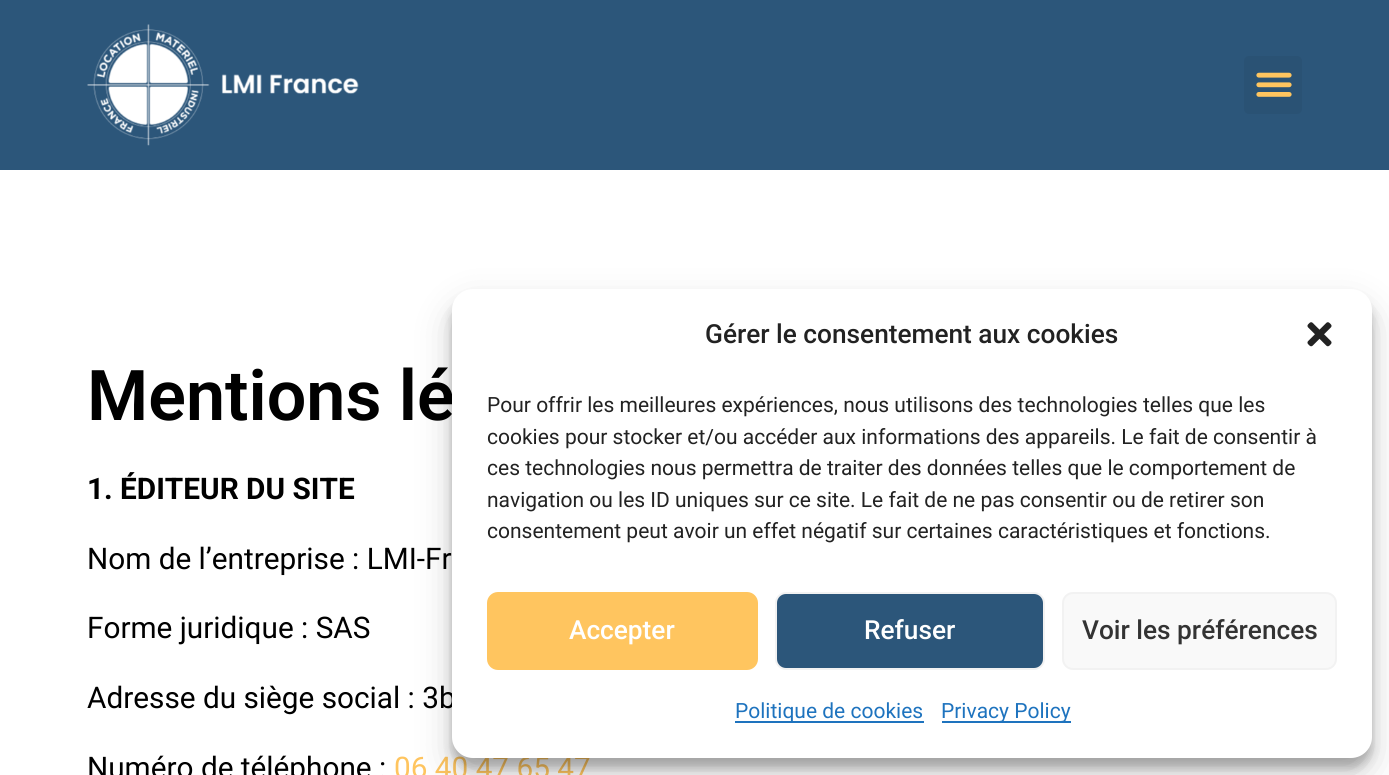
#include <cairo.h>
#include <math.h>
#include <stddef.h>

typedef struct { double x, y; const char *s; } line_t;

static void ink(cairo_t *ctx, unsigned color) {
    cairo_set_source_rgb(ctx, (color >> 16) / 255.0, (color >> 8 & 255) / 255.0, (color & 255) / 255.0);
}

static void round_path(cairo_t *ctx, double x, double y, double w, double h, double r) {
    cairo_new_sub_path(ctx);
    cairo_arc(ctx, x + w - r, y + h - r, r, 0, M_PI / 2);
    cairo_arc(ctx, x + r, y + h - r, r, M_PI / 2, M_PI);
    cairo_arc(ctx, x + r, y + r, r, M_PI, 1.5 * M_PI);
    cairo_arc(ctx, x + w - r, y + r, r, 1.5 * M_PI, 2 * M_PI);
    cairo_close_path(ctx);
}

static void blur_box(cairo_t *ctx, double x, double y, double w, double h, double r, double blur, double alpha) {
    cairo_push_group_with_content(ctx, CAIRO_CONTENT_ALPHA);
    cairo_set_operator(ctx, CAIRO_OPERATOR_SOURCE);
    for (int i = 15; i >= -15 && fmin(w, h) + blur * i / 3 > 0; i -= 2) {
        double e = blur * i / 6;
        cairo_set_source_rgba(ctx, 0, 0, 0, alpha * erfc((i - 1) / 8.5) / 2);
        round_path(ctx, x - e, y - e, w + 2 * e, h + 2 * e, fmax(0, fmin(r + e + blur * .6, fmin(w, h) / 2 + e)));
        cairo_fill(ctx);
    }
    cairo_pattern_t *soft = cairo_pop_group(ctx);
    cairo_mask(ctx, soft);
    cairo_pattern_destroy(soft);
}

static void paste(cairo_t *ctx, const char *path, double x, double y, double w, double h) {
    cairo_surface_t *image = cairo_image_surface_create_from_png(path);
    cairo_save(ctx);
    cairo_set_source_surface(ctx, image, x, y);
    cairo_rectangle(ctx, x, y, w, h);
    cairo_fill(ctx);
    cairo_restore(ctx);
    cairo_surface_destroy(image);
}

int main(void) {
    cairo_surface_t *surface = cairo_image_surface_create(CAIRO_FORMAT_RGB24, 1389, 775);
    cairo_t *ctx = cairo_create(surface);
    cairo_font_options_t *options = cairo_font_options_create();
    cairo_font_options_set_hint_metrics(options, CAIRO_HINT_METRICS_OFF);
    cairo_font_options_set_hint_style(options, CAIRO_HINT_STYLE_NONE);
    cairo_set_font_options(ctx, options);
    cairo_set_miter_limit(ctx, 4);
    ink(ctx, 0xFFFFFF);
    cairo_paint(ctx);
    ink(ctx, 0x2C567A);
    cairo_rectangle(ctx, 0, 0, 1389, 170);
    cairo_fill(ctx);
    paste(ctx, "media/1.png", 87, 24, 272, 122);
    ink(ctx, 0x2A5274);
    round_path(ctx, 1244, 56, 58, 58, 5);
    cairo_fill(ctx);
    paste(ctx, "media/2.png", 1256, 72, 36, 25);
    cairo_select_font_face(ctx, "Roboto SemiBold", CAIRO_FONT_SLANT_NORMAL, CAIRO_FONT_WEIGHT_NORMAL);
    cairo_set_font_size(ctx, 70);
    ink(ctx, 0x000000);
    cairo_move_to(ctx, 87, 420);
    cairo_show_text(ctx, "Mentions lé");
    cairo_select_font_face(ctx, "Roboto", CAIRO_FONT_SLANT_NORMAL, CAIRO_FONT_WEIGHT_BOLD);
    cairo_set_font_size(ctx, 29.75);
    cairo_move_to(ctx, 87, 499);
    cairo_show_text(ctx, "1. ÉDITEUR DU SITE");
    cairo_select_font_face(ctx, "Roboto", CAIRO_FONT_SLANT_NORMAL, CAIRO_FONT_WEIGHT_NORMAL);
    {
        static const line_t items[] = {
            {87, 569, "Nom de l’entreprise : LMI-Fr"},
            {87, 638, "Forme juridique : SAS"},
            {87, 708, "Adresse du siège social : 3b"},
            {87, 778, "Numéro de téléphone :"},
        };
        for (size_t i = 0; i < sizeof items / sizeof *items; i++) {
            cairo_move_to(ctx, items[i].x, items[i].y);
            cairo_show_text(ctx, items[i].s);
        }
    }
    ink(ctx, 0xFFC55F);
    cairo_move_to(ctx, 394, 778);
    cairo_show_text(ctx, "06 40 47 65 47");
    ink(ctx, 0x000000);
    blur_box(ctx, 452, 299, 920, 469, 21, 5, 0.23);
    blur_box(ctx, 452, 306, 920, 469, 21, 17.5, 0.19);
    ink(ctx, 0xFFFFFF);
    round_path(ctx, 452, 289, 920, 469, 21);
    cairo_fill(ctx);
    cairo_select_font_face(ctx, "Roboto Medium", CAIRO_FONT_SLANT_NORMAL, CAIRO_FONT_WEIGHT_NORMAL);
    cairo_set_font_size(ctx, 26.25);
    ink(ctx, 0x222222);
    cairo_move_to(ctx, 705, 343);
    cairo_show_text(ctx, "Gérer le consentement aux cookies");
    paste(ctx, "media/3.png", 1307, 322, 25, 25);
    cairo_select_font_face(ctx, "Roboto", CAIRO_FONT_SLANT_NORMAL, CAIRO_FONT_WEIGHT_NORMAL);
    cairo_set_font_size(ctx, 21);
    {
        static const line_t items[] = {
            {487, 412, "Pour offrir les meilleures expériences, nous utilisons des technologies telles que les"},
            {487, 444, "cookies pour stocker et/ou accéder aux informations des appareils. Le fait de consentir à"},
            {487, 475, "ces technologies nous permettra de traiter des données telles que le comportement de"},
            {487, 507, "navigation ou les ID uniques sur ce site. Le fait de ne pas consentir ou de retirer son"},
            {487, 538, "consentement peut avoir un effet négatif sur certaines caractéristiques et fonctions."},
        };
        for (size_t i = 0; i < sizeof items / sizeof *items; i++) {
            cairo_move_to(ctx, items[i].x, items[i].y);
            cairo_show_text(ctx, items[i].s);
        }
    }
    ink(ctx, 0xFFC55F);
    round_path(ctx, 488, 593, 269, 76, 10);
    cairo_fill_preserve(ctx);
    cairo_stroke(ctx);
    cairo_select_font_face(ctx, "Roboto Medium", CAIRO_FONT_SLANT_NORMAL, CAIRO_FONT_WEIGHT_NORMAL);
    cairo_set_font_size(ctx, 26.25);
    ink(ctx, 0xFFFFFF);
    cairo_move_to(ctx, 569, 639);
    cairo_show_text(ctx, "Accepter");
    ink(ctx, 0x2C567A);
    round_path(ctx, 776, 593, 268, 76, 10);
    cairo_fill_preserve(ctx);
    ink(ctx, 0xF2F2F2);
    cairo_stroke(ctx);
    ink(ctx, 0xFFFFFF);
    cairo_move_to(ctx, 864, 639);
    cairo_show_text(ctx, "Refuser");
    ink(ctx, 0xF9F9F9);
    round_path(ctx, 1063, 593, 273, 76, 10);
    cairo_fill_preserve(ctx);
    ink(ctx, 0xF2F2F2);
    cairo_stroke(ctx);
    ink(ctx, 0x333333);
    cairo_move_to(ctx, 1082, 639);
    cairo_show_text(ctx, "Voir les préférences");
    ink(ctx, 0x1E73BE);
    cairo_rectangle(ctx, 735, 721, 189, 2);
    cairo_fill(ctx);
    cairo_select_font_face(ctx, "Roboto", CAIRO_FONT_SLANT_NORMAL, CAIRO_FONT_WEIGHT_NORMAL);
    cairo_set_font_size(ctx, 21);
    cairo_move_to(ctx, 735, 718);
    cairo_show_text(ctx, "Politique de cookies");
    cairo_rectangle(ctx, 942, 721, 129, 2);
    cairo_fill(ctx);
    cairo_move_to(ctx, 941, 718);
    cairo_show_text(ctx, "Privacy Policy");
    cairo_surface_write_to_png(surface, "image.png");
    cairo_font_options_destroy(options);
    cairo_destroy(ctx);
    cairo_surface_destroy(surface);
    return 0;
}
